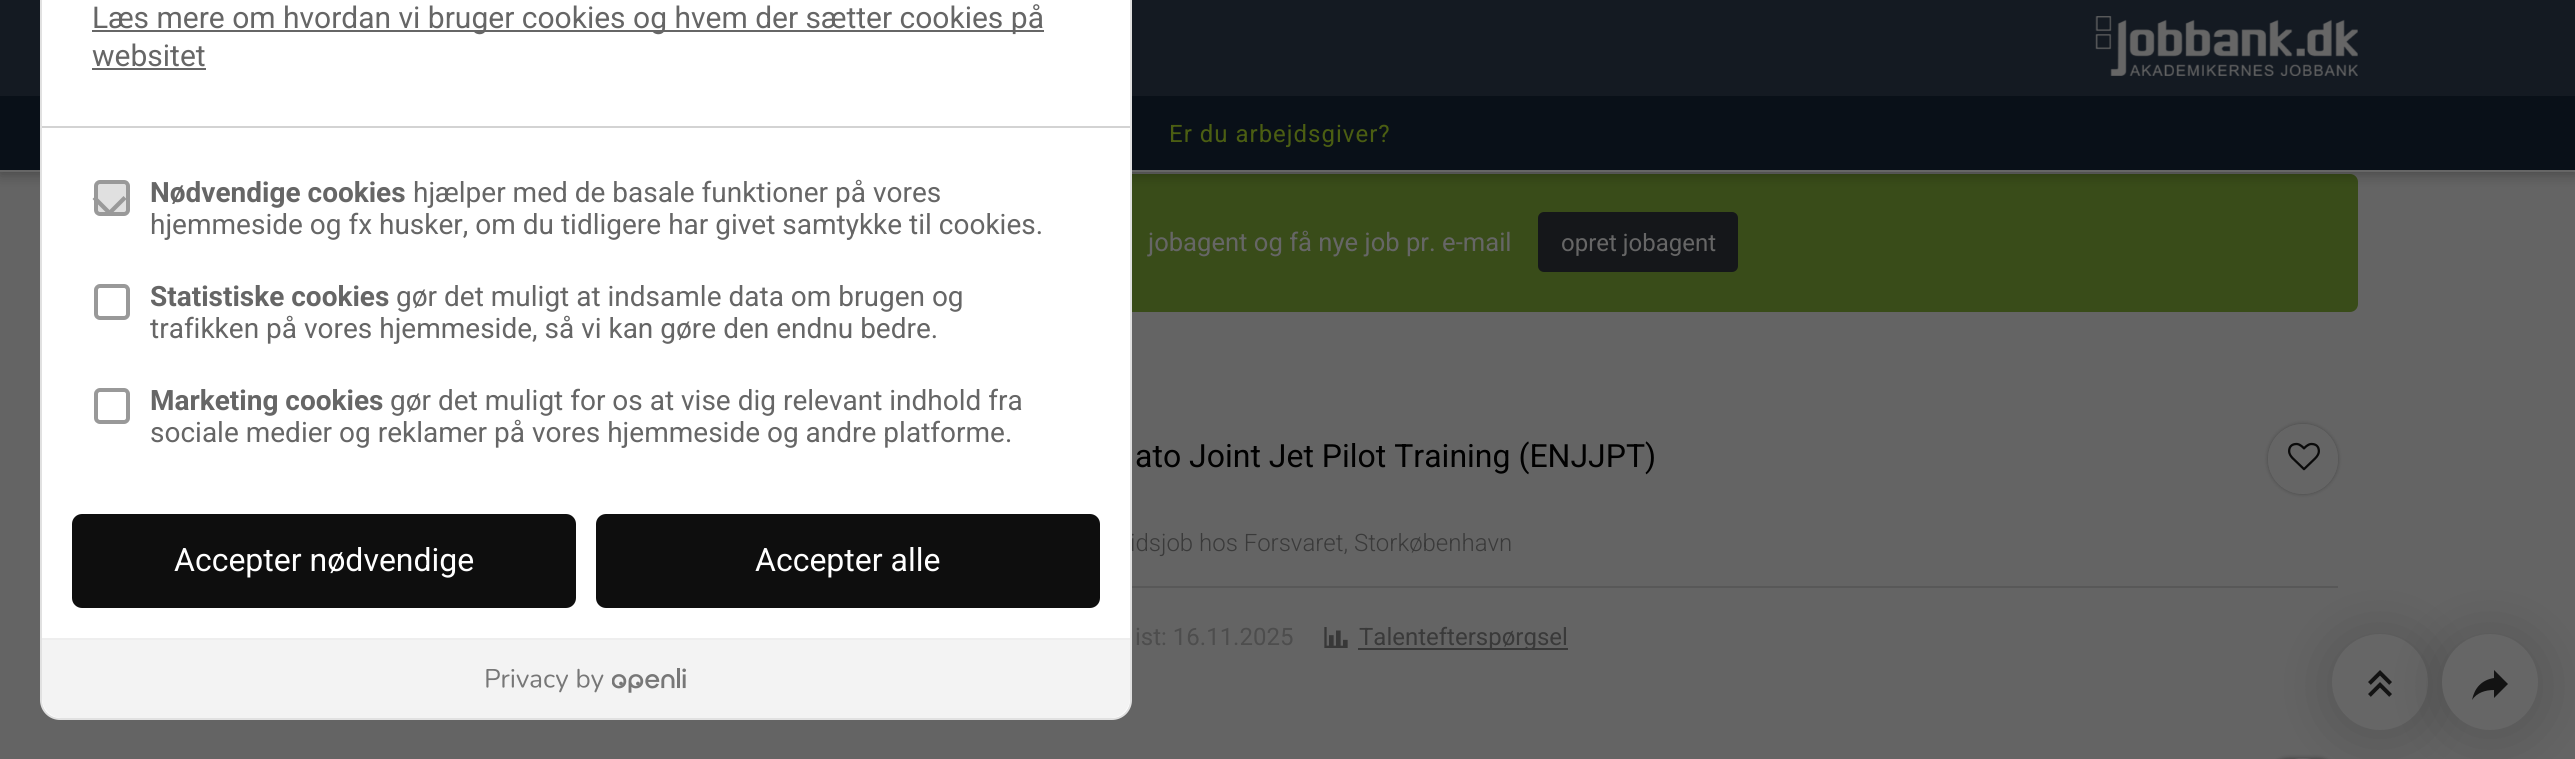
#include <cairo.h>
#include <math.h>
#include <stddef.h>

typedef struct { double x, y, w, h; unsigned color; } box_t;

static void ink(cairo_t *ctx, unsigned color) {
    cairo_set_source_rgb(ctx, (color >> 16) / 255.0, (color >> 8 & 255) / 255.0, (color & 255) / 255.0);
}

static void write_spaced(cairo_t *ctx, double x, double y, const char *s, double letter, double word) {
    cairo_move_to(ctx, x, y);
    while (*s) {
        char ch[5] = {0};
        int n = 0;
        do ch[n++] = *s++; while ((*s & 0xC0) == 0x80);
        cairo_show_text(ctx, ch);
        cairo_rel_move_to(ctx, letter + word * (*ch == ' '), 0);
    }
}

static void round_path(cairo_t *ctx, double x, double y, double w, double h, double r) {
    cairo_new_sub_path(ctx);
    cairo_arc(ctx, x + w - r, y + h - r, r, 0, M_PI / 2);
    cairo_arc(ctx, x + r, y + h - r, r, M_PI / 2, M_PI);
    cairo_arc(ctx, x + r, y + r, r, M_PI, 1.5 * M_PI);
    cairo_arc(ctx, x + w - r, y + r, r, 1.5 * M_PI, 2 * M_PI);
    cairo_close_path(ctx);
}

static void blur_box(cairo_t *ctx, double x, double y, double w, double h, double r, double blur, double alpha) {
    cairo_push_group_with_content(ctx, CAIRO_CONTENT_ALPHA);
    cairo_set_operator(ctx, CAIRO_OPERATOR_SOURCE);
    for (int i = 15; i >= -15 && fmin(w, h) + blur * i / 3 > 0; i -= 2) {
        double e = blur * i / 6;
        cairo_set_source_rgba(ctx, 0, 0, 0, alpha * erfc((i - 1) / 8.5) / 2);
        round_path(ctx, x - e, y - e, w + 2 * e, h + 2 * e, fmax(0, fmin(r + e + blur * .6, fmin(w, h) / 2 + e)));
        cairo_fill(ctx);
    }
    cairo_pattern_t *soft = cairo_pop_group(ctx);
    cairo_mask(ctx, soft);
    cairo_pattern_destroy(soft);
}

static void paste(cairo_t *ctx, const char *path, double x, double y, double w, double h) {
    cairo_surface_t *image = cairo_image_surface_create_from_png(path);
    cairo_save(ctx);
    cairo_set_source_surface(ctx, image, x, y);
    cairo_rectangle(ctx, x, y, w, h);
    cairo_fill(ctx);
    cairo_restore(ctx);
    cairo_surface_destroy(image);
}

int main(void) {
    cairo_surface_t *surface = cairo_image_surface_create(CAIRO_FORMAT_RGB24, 2575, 759);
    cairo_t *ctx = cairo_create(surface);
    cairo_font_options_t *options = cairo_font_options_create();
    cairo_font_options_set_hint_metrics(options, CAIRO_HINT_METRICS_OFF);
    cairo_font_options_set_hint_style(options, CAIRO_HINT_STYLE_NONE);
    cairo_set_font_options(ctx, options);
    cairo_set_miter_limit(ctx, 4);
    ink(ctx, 0x646464);
    cairo_paint(ctx);
    ink(ctx, 0x394C19);
    round_path(ctx, 218, 174, 2140, 138, 8);
    cairo_fill(ctx);
    ink(ctx, 0x000000);
    blur_box(ctx, 0, 2, 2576, 172, 0, 7, 0.3);
    {
        static const box_t items[] = {
            {0, 0, 2575, 96, 0x141A22},
            {0, 170, 2575, 2, 0x666666},
            {0, 96, 2575, 74, 0x091018},
        };
        for (size_t i = 0; i < sizeof items / sizeof *items; i++) {
            ink(ctx, items[i].color);
            cairo_rectangle(ctx, items[i].x, items[i].y, items[i].w, items[i].h);
            cairo_fill(ctx);
        }
    }
    cairo_select_font_face(ctx, "Roboto Light", CAIRO_FONT_SLANT_NORMAL, CAIRO_FONT_WEIGHT_NORMAL);
    cairo_set_font_size(ctx, 24);
    ink(ctx, 0x3A3A3A);
    cairo_move_to(ctx, 1130, 551);
    cairo_show_text(ctx, "idsjob hos Forsvaret, Storkøbenhavn");
    ink(ctx, 0xFFFFFF);
    round_path(ctx, 41, -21, 1090, 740, 19);
    cairo_fill_preserve(ctx);
    ink(ctx, 0xE1E1E1);
    cairo_stroke(ctx);
    ink(ctx, 0xD3D3D3);
    cairo_rectangle(ctx, 42, 126, 1088, 2);
    cairo_fill(ctx);
    ink(ctx, 0x666666);
    cairo_rectangle(ctx, 92, 30, 952, 2);
    cairo_fill(ctx);
    cairo_select_font_face(ctx, "Roboto", CAIRO_FONT_SLANT_NORMAL, CAIRO_FONT_WEIGHT_NORMAL);
    cairo_set_font_size(ctx, 30);
    cairo_move_to(ctx, 92, 28);
    cairo_show_text(ctx, "Læs mere om hvordan vi bruger cookies og hvem der sætter cookies på");
    cairo_move_to(ctx, 92, 66);
    cairo_show_text(ctx, "websitet");
    cairo_rectangle(ctx, 92, 68, 114, 2);
    cairo_fill(ctx);
    ink(ctx, 0xE0E0E0);
    round_path(ctx, 96, 182, 32, 32, 4);
    cairo_fill_preserve(ctx);
    ink(ctx, 0x999999);
    cairo_set_line_width(ctx, 4);
    cairo_stroke(ctx);
    cairo_new_path(ctx);
    cairo_move_to(ctx, 123.5, 196);
    cairo_line_to(ctx, 126.5, 199);
    cairo_line_to(ctx, 109.5, 216);
    cairo_line_to(ctx, 106.5, 213);
    cairo_close_path(ctx);
    cairo_fill(ctx);
    cairo_new_path(ctx);
    cairo_move_to(ctx, 95.5, 196);
    cairo_line_to(ctx, 112.5, 213);
    cairo_line_to(ctx, 109.5, 216);
    cairo_line_to(ctx, 92.5, 199);
    cairo_close_path(ctx);
    cairo_fill(ctx);
    cairo_select_font_face(ctx, "Roboto", CAIRO_FONT_SLANT_NORMAL, CAIRO_FONT_WEIGHT_BOLD);
    cairo_set_font_size(ctx, 28);
    ink(ctx, 0x666666);
    cairo_move_to(ctx, 150, 202);
    cairo_show_text(ctx, "Nødvendige cookies");
    cairo_select_font_face(ctx, "Roboto", CAIRO_FONT_SLANT_NORMAL, CAIRO_FONT_WEIGHT_NORMAL);
    cairo_move_to(ctx, 413, 202);
    cairo_show_text(ctx, "hjælper med de basale funktioner på vores");
    cairo_move_to(ctx, 150, 234);
    cairo_show_text(ctx, "hjemmeside og fx husker, om du tidligere har givet samtykke til cookies.");
    round_path(ctx, 96, 286, 32, 32, 4);
    ink(ctx, 0x999999);
    cairo_stroke(ctx);
    cairo_select_font_face(ctx, "Roboto", CAIRO_FONT_SLANT_NORMAL, CAIRO_FONT_WEIGHT_BOLD);
    ink(ctx, 0x666666);
    cairo_move_to(ctx, 150, 306);
    cairo_show_text(ctx, "Statistiske cookies");
    cairo_select_font_face(ctx, "Roboto", CAIRO_FONT_SLANT_NORMAL, CAIRO_FONT_WEIGHT_NORMAL);
    cairo_move_to(ctx, 396, 306);
    cairo_show_text(ctx, "gør det muligt at indsamle data om brugen og");
    cairo_move_to(ctx, 150, 338);
    cairo_show_text(ctx, "trafikken på vores hjemmeside, så vi kan gøre den endnu bedre.");
    round_path(ctx, 96, 390, 32, 32, 4);
    ink(ctx, 0x999999);
    cairo_stroke(ctx);
    cairo_select_font_face(ctx, "Roboto", CAIRO_FONT_SLANT_NORMAL, CAIRO_FONT_WEIGHT_BOLD);
    ink(ctx, 0x666666);
    cairo_move_to(ctx, 150, 410);
    cairo_show_text(ctx, "Marketing cookies");
    cairo_select_font_face(ctx, "Roboto", CAIRO_FONT_SLANT_NORMAL, CAIRO_FONT_WEIGHT_NORMAL);
    cairo_move_to(ctx, 390, 410);
    cairo_show_text(ctx, "gør det muligt for os at vise dig relevant indhold fra");
    cairo_move_to(ctx, 150, 442);
    cairo_show_text(ctx, "sociale medier og reklamer på vores hjemmeside og andre platforme.");
    ink(ctx, 0x0E0E0E);
    round_path(ctx, 73, 515, 502, 92, 9);
    cairo_fill_preserve(ctx);
    cairo_set_line_width(ctx, 2);
    cairo_stroke(ctx);
    cairo_set_font_size(ctx, 32);
    ink(ctx, 0xFFFFFF);
    cairo_move_to(ctx, 174, 571);
    cairo_show_text(ctx, "Accepter nødvendige");
    ink(ctx, 0x0E0E0E);
    round_path(ctx, 597, 515, 502, 92, 9);
    cairo_fill_preserve(ctx);
    cairo_stroke(ctx);
    ink(ctx, 0xFFFFFF);
    cairo_move_to(ctx, 755, 571);
    cairo_show_text(ctx, "Accepter alle");
    ink(ctx, 0xF3F3F3);
    cairo_new_path(ctx);
    cairo_move_to(ctx, 42, 638);
    cairo_line_to(ctx, 1130, 638);
    cairo_line_to(ctx, 1130, 698);
    cairo_curve_to(ctx, 1130, 709, 1121, 718, 1110, 718);
    cairo_line_to(ctx, 62, 718);
    cairo_curve_to(ctx, 51, 718, 42, 709, 42, 698);
    cairo_close_path(ctx);
    cairo_fill(ctx);
    ink(ctx, 0xEEEEEE);
    cairo_rectangle(ctx, 42, 638, 1088, 2);
    cairo_fill(ctx);
    paste(ctx, "media/1.png", 486, 668, 200, 25);
    paste(ctx, "media/2.png", 2095, 16, 263, 60);
    cairo_set_font_size(ctx, 24);
    ink(ctx, 0x4B5E12);
    write_spaced(ctx, 1169, 142, "Er du arbejdsgiver?", 1, 0);
    cairo_set_font_size(ctx, 25.6);
    ink(ctx, 0x666666);
    cairo_move_to(ctx, 1148, 251);
    cairo_show_text(ctx, "jobagent og få nye job pr. e-mail");
    ink(ctx, 0x15171A);
    round_path(ctx, 1539, 213, 198, 58, 5);
    cairo_fill_preserve(ctx);
    cairo_stroke(ctx);
    cairo_set_font_size(ctx, 24);
    ink(ctx, 0x666666);
    cairo_move_to(ctx, 1561, 251);
    cairo_show_text(ctx, "opret jobagent");
    cairo_set_font_size(ctx, 32);
    ink(ctx, 0x000000);
    cairo_move_to(ctx, 1135, 467);
    cairo_show_text(ctx, "ato Joint Jet Pilot Training (ENJJPT)");
    ink(ctx, 0x585858);
    cairo_rectangle(ctx, 1132, 586, 1206, 2);
    cairo_fill(ctx);
    cairo_set_font_size(ctx, 24);
    ink(ctx, 0x4D4D4D);
    cairo_move_to(ctx, 1135, 645);
    cairo_show_text(ctx, "ist: 16.11.2025");
    paste(ctx, "media/3.png", 1324, 627, 24, 21);
    ink(ctx, 0x383838);
    cairo_rectangle(ctx, 1358, 648, 210, 2);
    cairo_fill(ctx);
    ink(ctx, 0x3A3A3A);
    cairo_move_to(ctx, 1359, 645);
    cairo_show_text(ctx, "Talentefterspørgsel");
    cairo_save(ctx);
    cairo_set_fill_rule(ctx, CAIRO_FILL_RULE_EVEN_ODD);
    cairo_new_path(ctx);
    cairo_move_to(ctx, 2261, 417);
    cairo_line_to(ctx, 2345, 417);
    cairo_line_to(ctx, 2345, 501);
    cairo_line_to(ctx, 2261, 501);
    cairo_close_path(ctx);
    cairo_move_to(ctx, 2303, 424);
    cairo_curve_to(ctx, 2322.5, 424, 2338, 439.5, 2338, 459);
    cairo_curve_to(ctx, 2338, 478.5, 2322.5, 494, 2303, 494);
    cairo_curve_to(ctx, 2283.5, 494, 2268, 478.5, 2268, 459);
    cairo_curve_to(ctx, 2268, 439.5, 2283.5, 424, 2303, 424);
    cairo_close_path(ctx);
    cairo_clip(ctx);
    ink(ctx, 0x000000);
    blur_box(ctx, 2268, 424, 70, 70, 35, 2, 0.3);
    cairo_restore(ctx);
    cairo_set_source_rgba(ctx, 0.4, 0.4, 0.4, 0.6);
    cairo_arc(ctx, 2303, 459, 35, 0, 2 * M_PI);
    cairo_fill(ctx);
    paste(ctx, "media/4.png", 2288, 442, 32, 29);
    ink(ctx, 0x000000);
    blur_box(ctx, 2268, 758, 70, 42, 35, 2, 0.3);
    cairo_set_source_rgba(ctx, 0.4, 0.4, 0.4, 0.6);
    round_path(ctx, 2268, 758, 70, 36, 35);
    cairo_fill(ctx);
    round_path(ctx, 2269, 759, 68, 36, 34);
    cairo_set_source_rgba(ctx, 0.4, 0.4, 0.4, 0.4);
    cairo_stroke(ctx);
    ink(ctx, 0x000000);
    blur_box(ctx, 2332, 638, 96, 96, 48, 32, 0.16);
    ink(ctx, 0x666666);
    cairo_arc(ctx, 2380, 682, 48, 0, 2 * M_PI);
    cairo_fill(ctx);
    paste(ctx, "media/5.png", 2368, 670, 24, 27);
    ink(ctx, 0x000000);
    blur_box(ctx, 2442, 638, 96, 96, 48, 32, 0.16);
    ink(ctx, 0x666666);
    cairo_arc(ctx, 2490, 682, 48, 0, 2 * M_PI);
    cairo_fill(ctx);
    ink(ctx, 0x131313);
    cairo_new_path(ctx);
    cairo_move_to(ctx, 2508, 684);
    cairo_line_to(ctx, 2494, 670);
    cairo_line_to(ctx, 2494, 678);
    cairo_curve_to(ctx, 2481.5, 680, 2474.5, 688, 2472, 700);
    cairo_curve_to(ctx, 2477, 692.5, 2485.5, 690, 2494, 690);
    cairo_line_to(ctx, 2494, 698);
    cairo_close_path(ctx);
    cairo_fill(ctx);
    cairo_surface_write_to_png(surface, "image.png");
    cairo_font_options_destroy(options);
    cairo_destroy(ctx);
    cairo_surface_destroy(surface);
    return 0;
}
